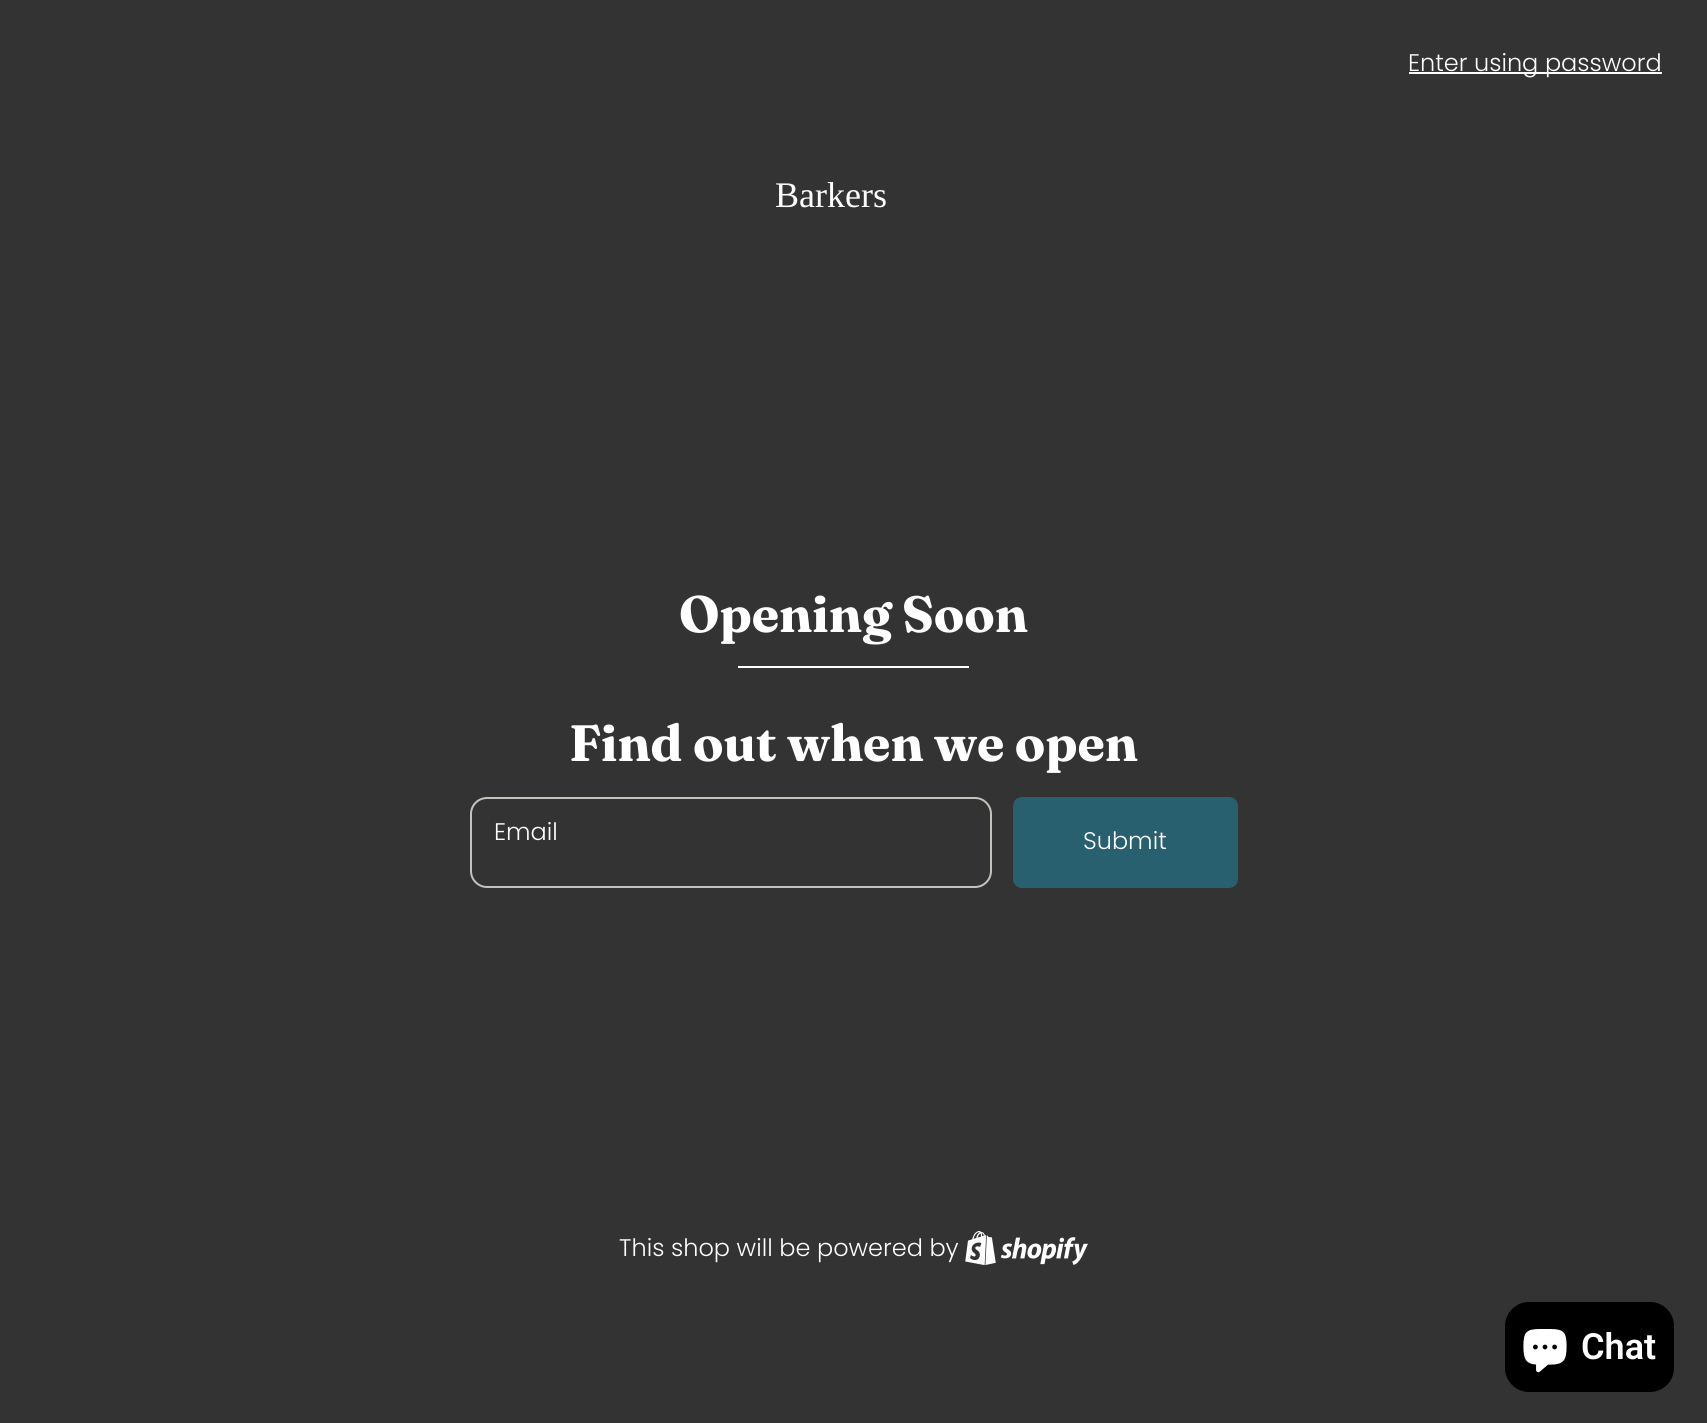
#include <cairo.h>
#include <math.h>
#include <stddef.h>


static void ink(cairo_t *ctx, unsigned color) {
    cairo_set_source_rgb(ctx, (color >> 16) / 255.0, (color >> 8 & 255) / 255.0, (color & 255) / 255.0);
}

static void round_path(cairo_t *ctx, double x, double y, double w, double h, double r) {
    cairo_new_sub_path(ctx);
    cairo_arc(ctx, x + w - r, y + h - r, r, 0, M_PI / 2);
    cairo_arc(ctx, x + r, y + h - r, r, M_PI / 2, M_PI);
    cairo_arc(ctx, x + r, y + r, r, M_PI, 1.5 * M_PI);
    cairo_arc(ctx, x + w - r, y + r, r, 1.5 * M_PI, 2 * M_PI);
    cairo_close_path(ctx);
}

static void paste(cairo_t *ctx, const char *path, double x, double y, double w, double h) {
    cairo_surface_t *image = cairo_image_surface_create_from_png(path);
    cairo_save(ctx);
    cairo_set_source_surface(ctx, image, x, y);
    cairo_rectangle(ctx, x, y, w, h);
    cairo_fill(ctx);
    cairo_restore(ctx);
    cairo_surface_destroy(image);
}

int main(void) {
    cairo_surface_t *surface = cairo_image_surface_create(CAIRO_FORMAT_RGB24, 1707, 1423);
    cairo_t *ctx = cairo_create(surface);
    cairo_font_options_t *options = cairo_font_options_create();
    cairo_font_options_set_hint_metrics(options, CAIRO_HINT_METRICS_OFF);
    cairo_font_options_set_hint_style(options, CAIRO_HINT_STYLE_NONE);
    cairo_set_font_options(ctx, options);
    cairo_set_miter_limit(ctx, 4);
    ink(ctx, 0x333333);
    cairo_paint(ctx);
    ink(ctx, 0xFFFFFF);
    cairo_rectangle(ctx, 1409, 72, 253, 2);
    cairo_fill(ctx);
    cairo_select_font_face(ctx, "Poppins Light", CAIRO_FONT_SLANT_NORMAL, CAIRO_FONT_WEIGHT_NORMAL);
    cairo_set_font_size(ctx, 24);
    cairo_move_to(ctx, 1408, 71);
    cairo_show_text(ctx, "Enter using password");
    cairo_select_font_face(ctx, "Liberation Serif", CAIRO_FONT_SLANT_NORMAL, CAIRO_FONT_WEIGHT_NORMAL);
    cairo_set_font_size(ctx, 36);
    cairo_move_to(ctx, 775, 207);
    cairo_show_text(ctx, "Barkers");
    cairo_select_font_face(ctx, "Fraunces", CAIRO_FONT_SLANT_NORMAL, CAIRO_FONT_WEIGHT_BOLD);
    cairo_set_font_size(ctx, 51);
    cairo_move_to(ctx, 679, 632);
    cairo_show_text(ctx, "Opening Soon");
    cairo_rectangle(ctx, 738, 666, 231, 2);
    cairo_fill(ctx);
    cairo_move_to(ctx, 569, 761);
    cairo_show_text(ctx, "Find out when we open");
    round_path(ctx, 471, 798, 520, 89, 16);
    ink(ctx, 0xC5C2BD);
    cairo_stroke(ctx);
    cairo_select_font_face(ctx, "Poppins Light", CAIRO_FONT_SLANT_NORMAL, CAIRO_FONT_WEIGHT_NORMAL);
    cairo_set_font_size(ctx, 24);
    ink(ctx, 0xFFFFFF);
    cairo_move_to(ctx, 494, 840);
    cairo_show_text(ctx, "Email");
    round_path(ctx, 1014, 798, 223, 89, 8);
    ink(ctx, 0x286070);
    cairo_stroke(ctx);
    round_path(ctx, 1014, 798, 222, 89, 8);
    cairo_fill(ctx);
    ink(ctx, 0xFFFFFF);
    cairo_move_to(ctx, 1083, 849);
    cairo_show_text(ctx, "Submit");
    cairo_move_to(ctx, 619, 1256);
    cairo_show_text(ctx, "This shop will be powered by");
    paste(ctx, "media/1.png", 965, 1231, 123, 35);
    ink(ctx, 0x000000);
    round_path(ctx, 1505, 1302, 169, 90, 24);
    cairo_fill(ctx);
    paste(ctx, "media/2.png", 1523, 1329, 44, 44);
    cairo_select_font_face(ctx, "Roboto SemiBold", CAIRO_FONT_SLANT_NORMAL, CAIRO_FONT_WEIGHT_NORMAL);
    cairo_set_font_size(ctx, 36);
    ink(ctx, 0xFFFFFF);
    cairo_move_to(ctx, 1581, 1359);
    cairo_show_text(ctx, "Chat");
    cairo_surface_write_to_png(surface, "image.png");
    cairo_font_options_destroy(options);
    cairo_destroy(ctx);
    cairo_surface_destroy(surface);
    return 0;
}
